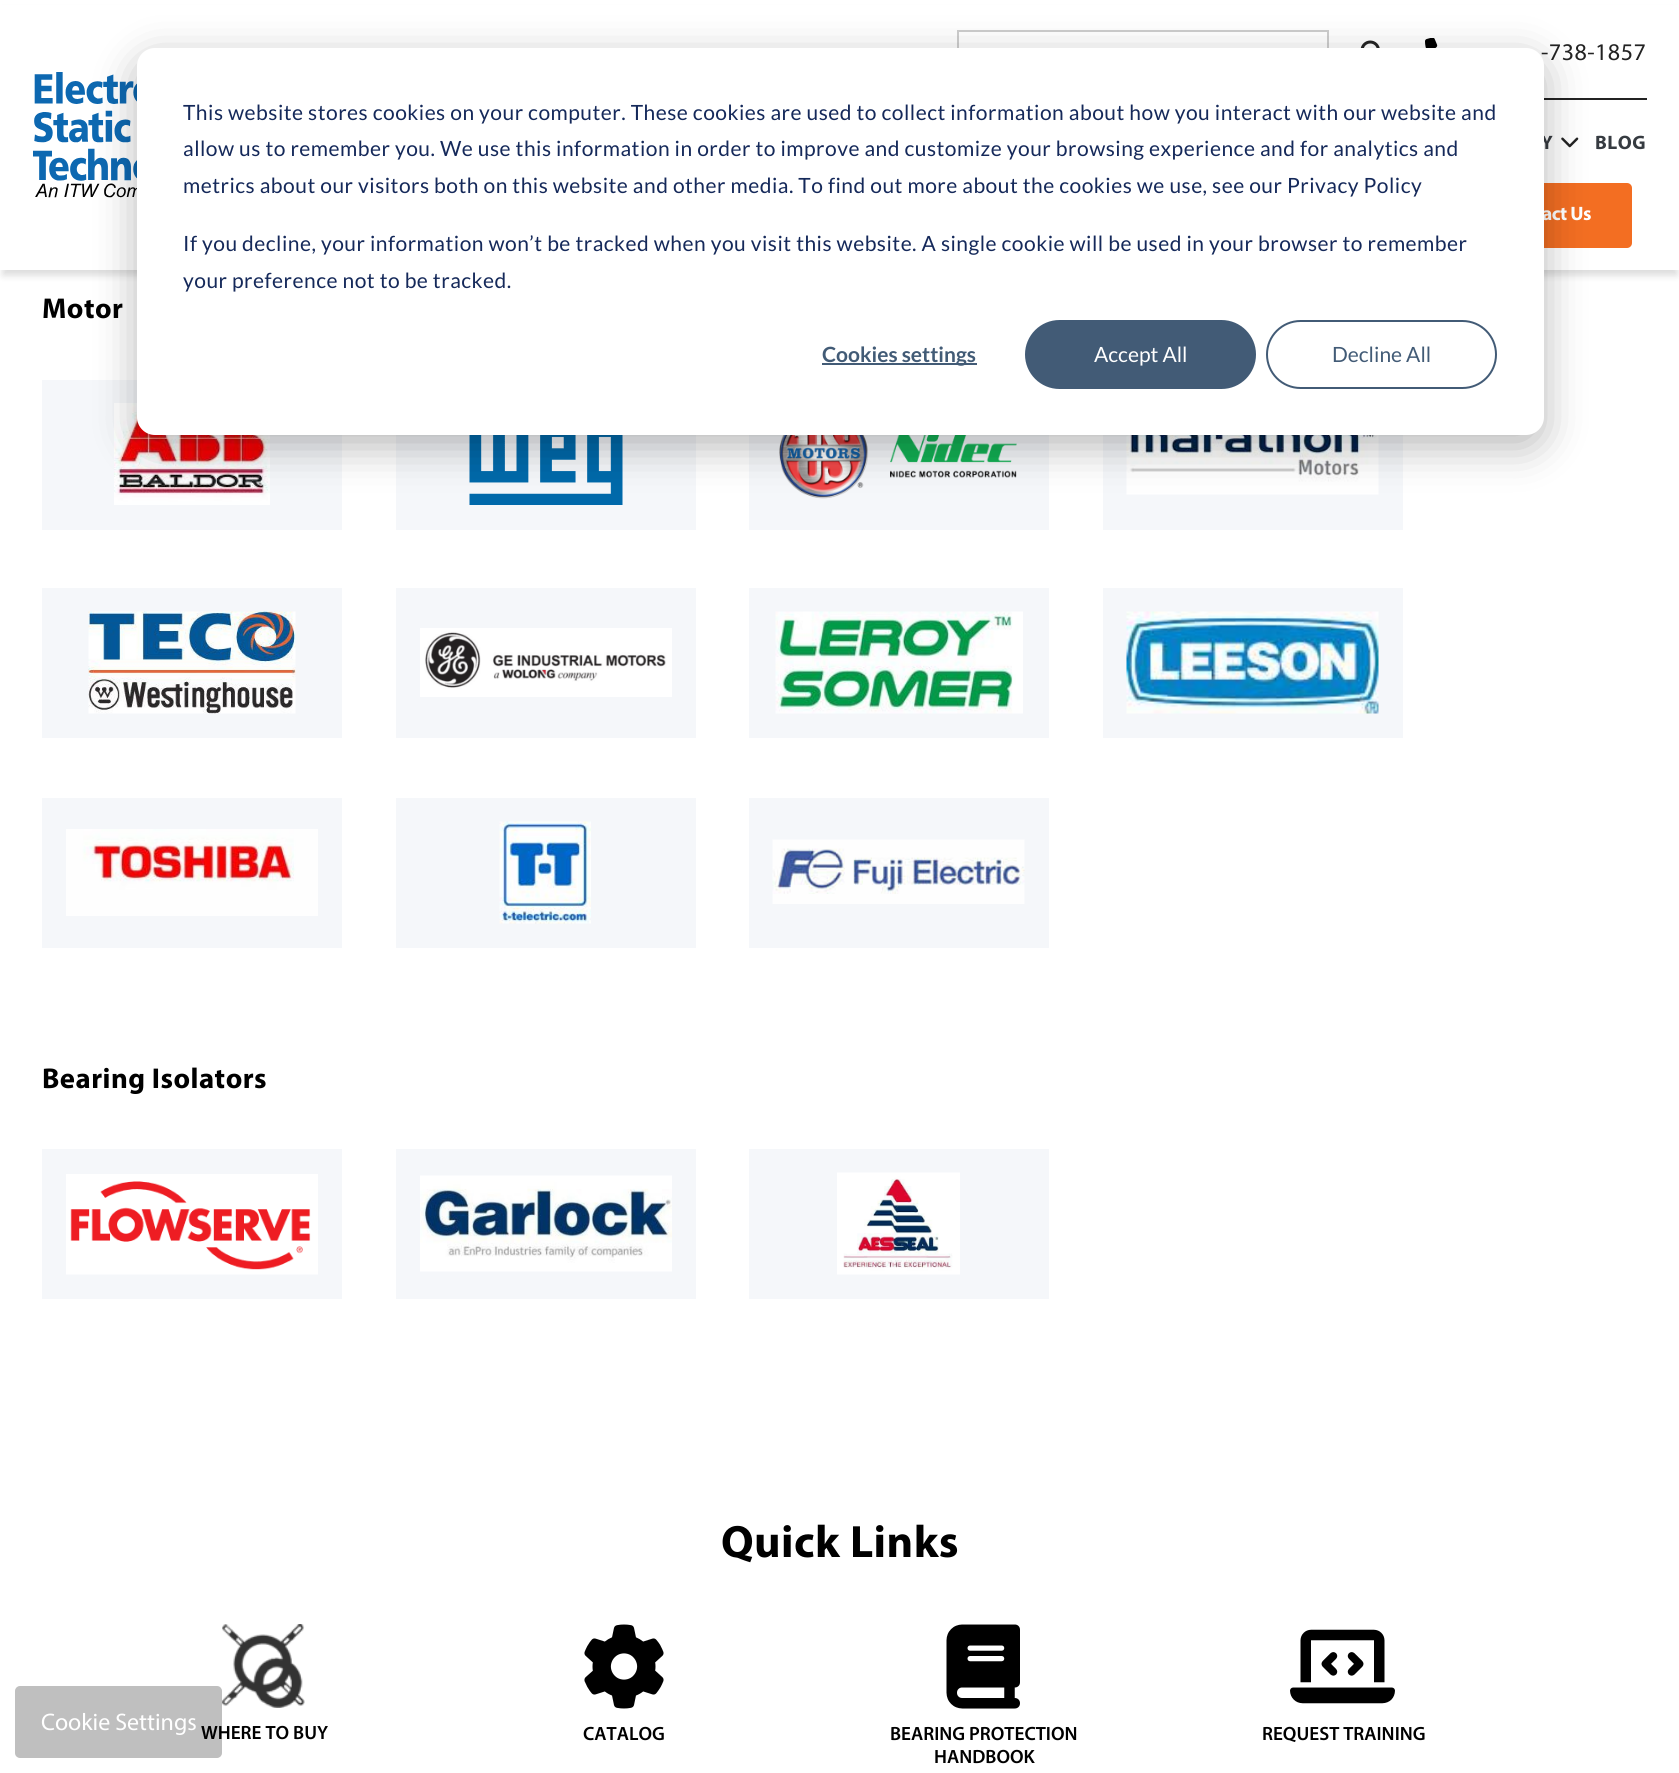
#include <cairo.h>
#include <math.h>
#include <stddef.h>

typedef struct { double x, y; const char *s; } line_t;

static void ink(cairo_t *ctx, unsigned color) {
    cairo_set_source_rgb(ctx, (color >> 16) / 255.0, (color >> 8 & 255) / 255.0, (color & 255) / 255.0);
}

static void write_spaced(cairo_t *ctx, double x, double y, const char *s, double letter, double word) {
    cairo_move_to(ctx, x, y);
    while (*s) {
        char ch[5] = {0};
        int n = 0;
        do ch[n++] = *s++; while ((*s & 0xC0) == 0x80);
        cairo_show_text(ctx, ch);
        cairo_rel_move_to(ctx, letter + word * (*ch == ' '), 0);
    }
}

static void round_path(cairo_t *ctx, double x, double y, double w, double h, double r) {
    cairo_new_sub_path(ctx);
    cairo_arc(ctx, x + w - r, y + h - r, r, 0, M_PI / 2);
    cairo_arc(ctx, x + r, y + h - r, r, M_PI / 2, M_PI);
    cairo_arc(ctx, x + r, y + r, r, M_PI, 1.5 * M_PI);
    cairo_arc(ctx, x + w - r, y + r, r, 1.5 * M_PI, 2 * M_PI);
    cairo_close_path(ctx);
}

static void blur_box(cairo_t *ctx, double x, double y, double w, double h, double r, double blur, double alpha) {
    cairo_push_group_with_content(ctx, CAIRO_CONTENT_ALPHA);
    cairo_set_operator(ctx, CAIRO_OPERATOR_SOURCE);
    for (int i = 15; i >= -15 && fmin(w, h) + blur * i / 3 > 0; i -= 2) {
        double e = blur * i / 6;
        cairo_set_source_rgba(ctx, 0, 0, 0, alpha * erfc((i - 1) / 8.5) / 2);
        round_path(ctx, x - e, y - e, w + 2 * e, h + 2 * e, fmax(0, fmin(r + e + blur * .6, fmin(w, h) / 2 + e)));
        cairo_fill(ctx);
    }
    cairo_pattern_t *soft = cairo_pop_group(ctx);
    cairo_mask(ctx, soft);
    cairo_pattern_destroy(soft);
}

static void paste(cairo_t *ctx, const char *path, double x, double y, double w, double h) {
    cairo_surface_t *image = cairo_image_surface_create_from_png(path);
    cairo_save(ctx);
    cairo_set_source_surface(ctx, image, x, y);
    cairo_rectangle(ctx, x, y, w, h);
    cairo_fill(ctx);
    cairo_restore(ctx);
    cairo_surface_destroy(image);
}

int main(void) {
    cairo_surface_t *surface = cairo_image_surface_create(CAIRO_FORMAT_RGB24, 1679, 1773);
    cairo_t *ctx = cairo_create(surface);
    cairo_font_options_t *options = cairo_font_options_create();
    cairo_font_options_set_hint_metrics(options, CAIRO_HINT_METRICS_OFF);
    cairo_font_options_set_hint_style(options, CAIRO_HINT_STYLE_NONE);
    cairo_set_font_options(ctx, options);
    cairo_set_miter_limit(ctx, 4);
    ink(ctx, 0xFFFFFF);
    cairo_paint(ctx);
    ink(ctx, 0x000000);
    blur_box(ctx, 3, 11, 1674, 264, 0, 4, 0.15);
    ink(ctx, 0xFFFFFF);
    cairo_rectangle(ctx, 0, 5, 1679, 265);
    cairo_fill(ctx);
    paste(ctx, "media/1.png", 33, 72, 104, 126);
    ink(ctx, 0x232323);
    cairo_rectangle(ctx, 1544, 98, 103, 2);
    cairo_fill(ctx);
    cairo_rectangle(ctx, 958, 31, 370, 43);
    ink(ctx, 0xCDCDCD);
    cairo_stroke(ctx);
    paste(ctx, "media/2.png", 1360, 40, 20, 8);
    paste(ctx, "media/3.png", 1425, 38, 13, 10);
    cairo_select_font_face(ctx, "Myriad", CAIRO_FONT_SLANT_NORMAL, CAIRO_FONT_WEIGHT_NORMAL);
    cairo_set_font_size(ctx, 24);
    ink(ctx, 0x232323);
    write_spaced(ctx, 1541, 60, "-738-1857", 0.48, 0);
    cairo_select_font_face(ctx, "Myriad", CAIRO_FONT_SLANT_NORMAL, CAIRO_FONT_WEIGHT_BOLD);
    cairo_set_font_size(ctx, 19.5);
    ink(ctx, 0x363B41);
    write_spaced(ctx, 1541, 149, "Y", 0.48, 0);
    paste(ctx, "media/4.png", 1561, 137, 18, 11);
    write_spaced(ctx, 1595, 149, "BLOG", 0.48, 0);
    ink(ctx, 0xF36E22);
    round_path(ctx, 1463, 183, 169, 65, 5);
    cairo_fill(ctx);
    ink(ctx, 0xFFFFFF);
    write_spaced(ctx, 1542, 220, "act Us", -0.5, 0);
    cairo_set_font_size(ctx, 28.75);
    ink(ctx, 0x000000);
    write_spaced(ctx, 42, 318, "Motor", 0.48, 0);
    ink(ctx, 0xF5F7FA);
    cairo_rectangle(ctx, 42, 380, 300, 150);
    cairo_fill(ctx);
    paste(ctx, "media/5.png", 114, 403, 156, 102);
    cairo_rectangle(ctx, 396, 435, 300, 95);
    cairo_fill(ctx);
    paste(ctx, "media/6.png", 469, 435, 154, 70);
    cairo_rectangle(ctx, 749, 435, 300, 95);
    cairo_fill(ctx);
    paste(ctx, "media/7.png", 779, 435, 238, 64);
    cairo_rectangle(ctx, 1103, 435, 300, 95);
    cairo_fill(ctx);
    paste(ctx, "media/8.png", 1126, 435, 253, 60);
    cairo_rectangle(ctx, 42, 588, 300, 150);
    cairo_fill(ctx);
    paste(ctx, "media/9.png", 88, 611, 208, 103);
    cairo_rectangle(ctx, 396, 588, 300, 150);
    cairo_fill(ctx);
    paste(ctx, "media/10.png", 420, 628, 252, 69);
    cairo_rectangle(ctx, 749, 588, 300, 150);
    cairo_fill(ctx);
    paste(ctx, "media/11.png", 775, 611, 248, 103);
    cairo_rectangle(ctx, 1103, 588, 300, 150);
    cairo_fill(ctx);
    paste(ctx, "media/12.png", 1126, 611, 253, 103);
    cairo_rectangle(ctx, 42, 798, 300, 150);
    cairo_fill(ctx);
    paste(ctx, "media/13.png", 66, 829, 252, 87);
    cairo_rectangle(ctx, 396, 798, 300, 150);
    cairo_fill(ctx);
    paste(ctx, "media/14.png", 499, 821, 92, 103);
    cairo_rectangle(ctx, 749, 798, 300, 150);
    cairo_fill(ctx);
    paste(ctx, "media/15.png", 772, 839, 253, 65);
    ink(ctx, 0x000000);
    write_spaced(ctx, 42, 1088, "Bearing Isolators", 0.48, 0);
    ink(ctx, 0xF5F7FA);
    cairo_rectangle(ctx, 42, 1149, 300, 150);
    cairo_fill(ctx);
    paste(ctx, "media/16.png", 66, 1174, 252, 101);
    cairo_rectangle(ctx, 396, 1149, 300, 150);
    cairo_fill(ctx);
    paste(ctx, "media/17.png", 420, 1175, 252, 97);
    cairo_rectangle(ctx, 749, 1149, 300, 150);
    cairo_fill(ctx);
    paste(ctx, "media/18.png", 837, 1172, 123, 103);
    cairo_set_font_size(ctx, 45.5);
    ink(ctx, 0x000000);
    write_spaced(ctx, 721, 1557, "Quick Links", 0.48, 0);
    paste(ctx, "media/19.png", 222, 1624, 83, 84);
    ink(ctx, 0xBFBFBF);
    round_path(ctx, 16, 1687, 205, 70, 4);
    cairo_fill_preserve(ctx);
    cairo_stroke(ctx);
    cairo_select_font_face(ctx, "Myriad SemiBold", CAIRO_FONT_SLANT_NORMAL, CAIRO_FONT_WEIGHT_NORMAL);
    cairo_set_font_size(ctx, 19.25);
    ink(ctx, 0x000000);
    cairo_move_to(ctx, 201, 1739);
    cairo_show_text(ctx, "WHERE TO BUY");
    paste(ctx, "media/20.png", 584, 1624, 80, 85);
    cairo_move_to(ctx, 583, 1740);
    cairo_show_text(ctx, "CATALOG");
    paste(ctx, "media/21.png", 946, 1624, 74, 85);
    cairo_move_to(ctx, 890, 1740);
    cairo_show_text(ctx, "BEARING PROTECTION");
    cairo_move_to(ctx, 934, 1763);
    cairo_show_text(ctx, "HANDBOOK");
    paste(ctx, "media/22.png", 1290, 1629, 105, 75);
    cairo_move_to(ctx, 1262, 1740);
    cairo_show_text(ctx, "REQUEST TRAINING");
    ink(ctx, 0x000000);
    blur_box(ctx, 137, 60, 1407, 387, 18, 21, 0.28);
    ink(ctx, 0xFFFFFF);
    round_path(ctx, 137, 48, 1407, 387, 18);
    cairo_fill(ctx);
    cairo_select_font_face(ctx, "Lato", CAIRO_FONT_SLANT_NORMAL, CAIRO_FONT_WEIGHT_NORMAL);
    cairo_set_font_size(ctx, 21);
    ink(ctx, 0x15295A);
    {
        static const line_t items[] = {
            {183, 120, "This website stores cookies on your computer. These cookies are used to collect information about how you interact with our website and"},
            {183, 156, "allow us to remember you. We use this information in order to improve and customize your browsing experience and for analytics and"},
            {183, 193, "metrics about our visitors both on this website and other media. To find out more about the cookies we use, see our Privacy Policy"},
            {183, 251, "If you decline, your information won’t be tracked when you visit this website. A single cookie will be used in your browser to remember"},
            {183, 288, "your preference not to be tracked."},
        };
        for (size_t i = 0; i < sizeof items / sizeof *items; i++) {
            write_spaced(ctx, items[i].x, items[i].y, items[i].s, 0.48, 0);
        }
    }
    ink(ctx, 0x425B76);
    cairo_rectangle(ctx, 822, 363, 155, 2);
    cairo_fill(ctx);
    cairo_select_font_face(ctx, "Lato", CAIRO_FONT_SLANT_NORMAL, CAIRO_FONT_WEIGHT_BOLD);
    cairo_move_to(ctx, 822, 362);
    cairo_show_text(ctx, "Cookies settings");
    round_path(ctx, 1026, 321, 229, 67, 33.5);
    cairo_fill_preserve(ctx);
    cairo_stroke(ctx);
    cairo_select_font_face(ctx, "Lato", CAIRO_FONT_SLANT_NORMAL, CAIRO_FONT_WEIGHT_NORMAL);
    ink(ctx, 0xFFFFFF);
    cairo_move_to(ctx, 1094, 362);
    cairo_show_text(ctx, "Accept All");
    round_path(ctx, 1267, 321, 229, 67, 33.5);
    ink(ctx, 0x425B76);
    cairo_stroke(ctx);
    cairo_move_to(ctx, 1332, 362);
    cairo_show_text(ctx, "Decline All");
    cairo_select_font_face(ctx, "Myriad", CAIRO_FONT_SLANT_NORMAL, CAIRO_FONT_WEIGHT_NORMAL);
    cairo_set_font_size(ctx, 24);
    ink(ctx, 0xFFFFFF);
    cairo_move_to(ctx, 41, 1730);
    cairo_show_text(ctx, "Cookie Settings");
    cairo_surface_write_to_png(surface, "image.png");
    cairo_font_options_destroy(options);
    cairo_destroy(ctx);
    cairo_surface_destroy(surface);
    return 0;
}
